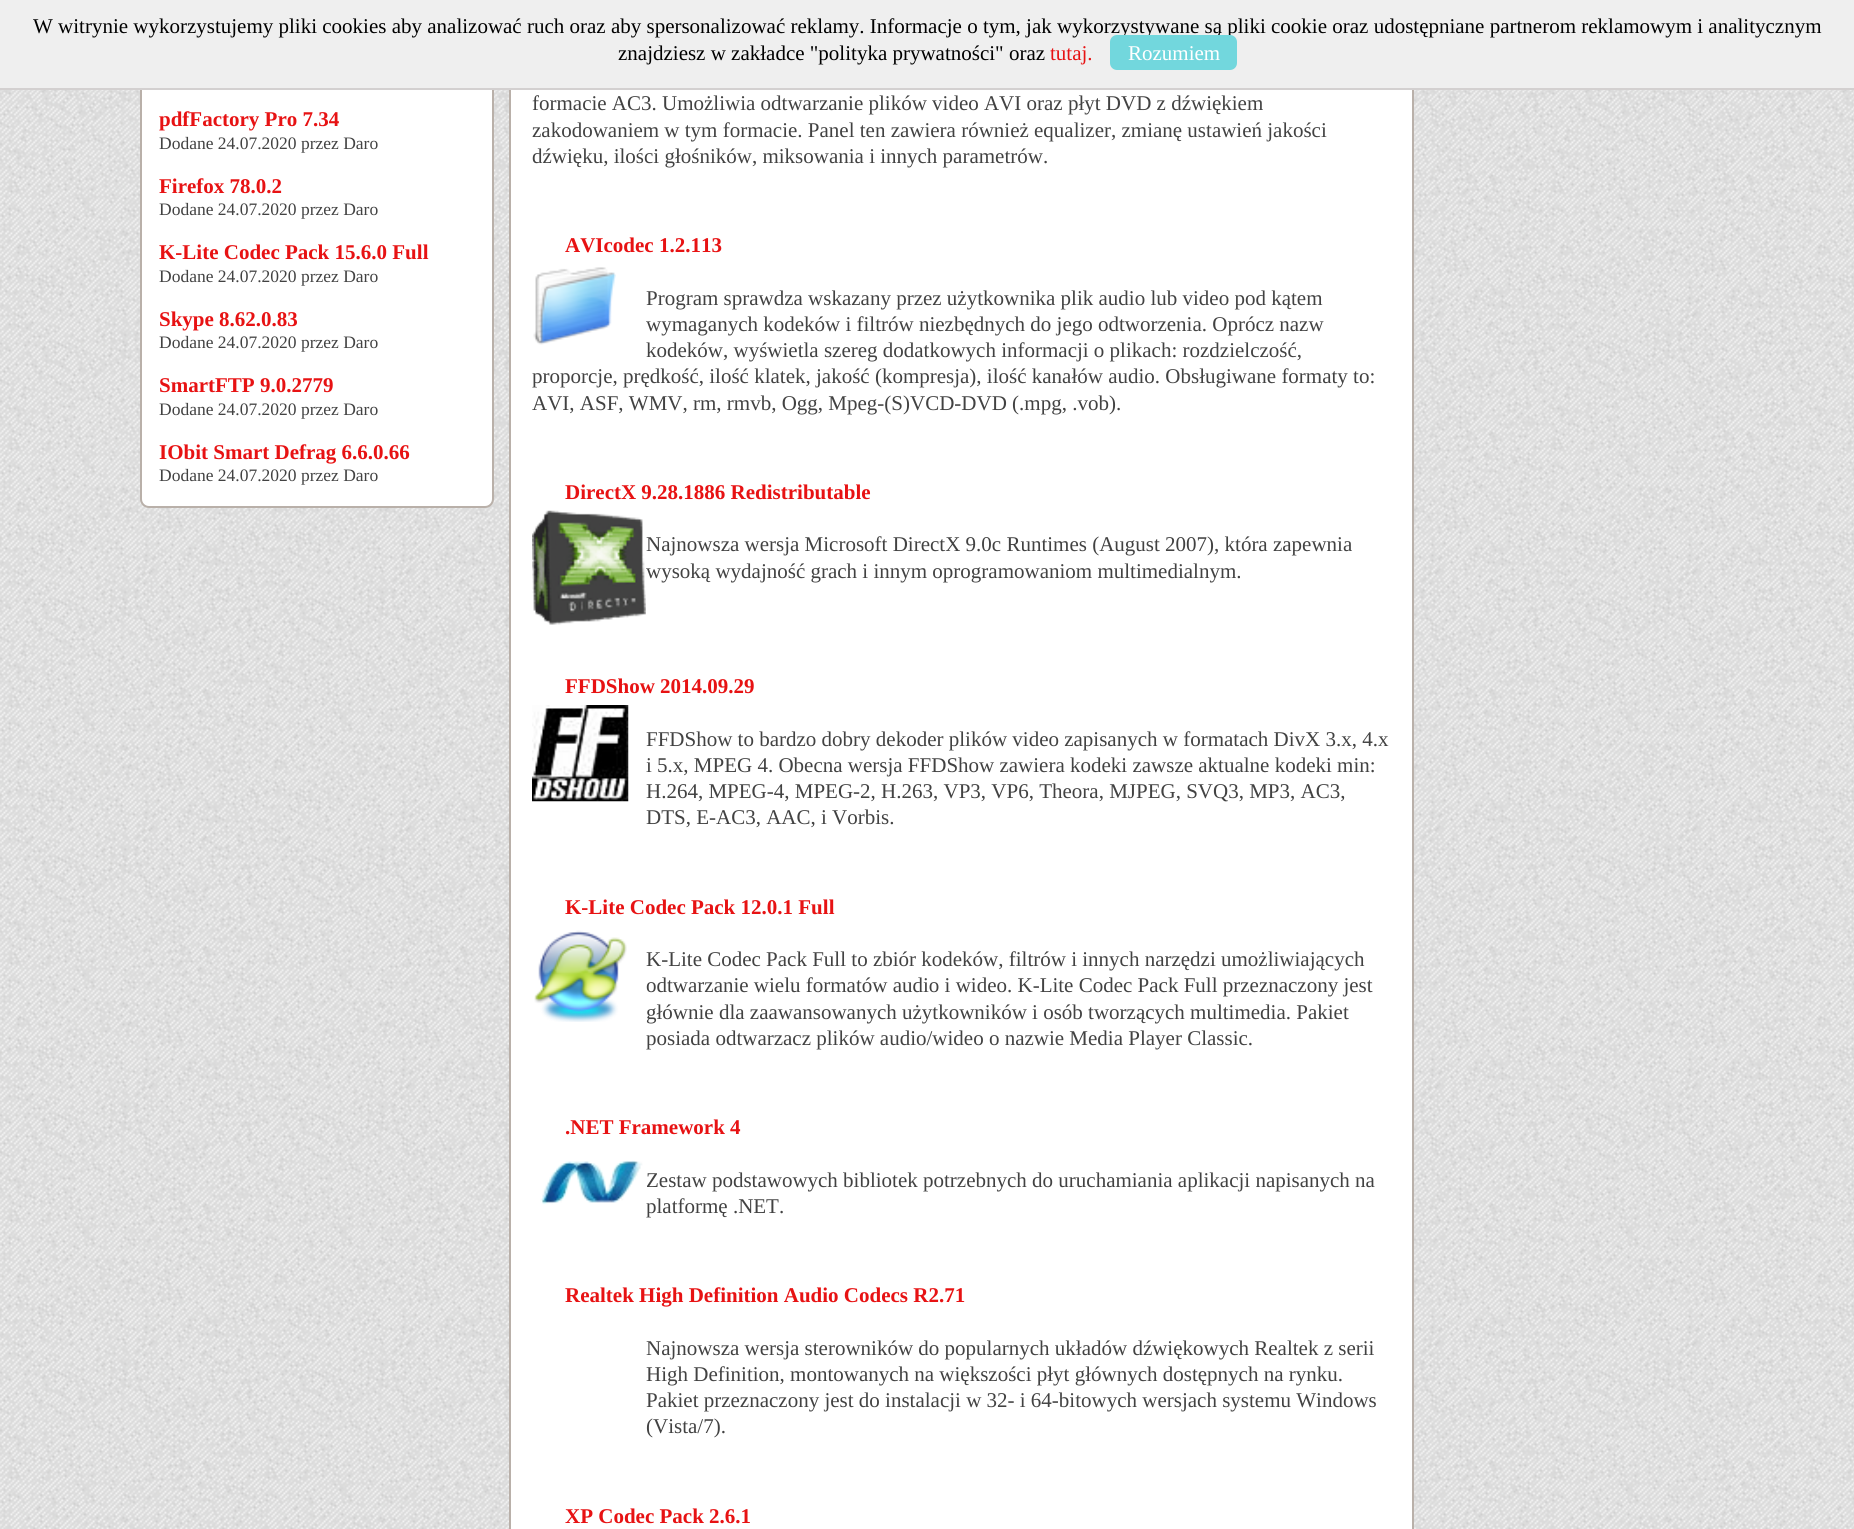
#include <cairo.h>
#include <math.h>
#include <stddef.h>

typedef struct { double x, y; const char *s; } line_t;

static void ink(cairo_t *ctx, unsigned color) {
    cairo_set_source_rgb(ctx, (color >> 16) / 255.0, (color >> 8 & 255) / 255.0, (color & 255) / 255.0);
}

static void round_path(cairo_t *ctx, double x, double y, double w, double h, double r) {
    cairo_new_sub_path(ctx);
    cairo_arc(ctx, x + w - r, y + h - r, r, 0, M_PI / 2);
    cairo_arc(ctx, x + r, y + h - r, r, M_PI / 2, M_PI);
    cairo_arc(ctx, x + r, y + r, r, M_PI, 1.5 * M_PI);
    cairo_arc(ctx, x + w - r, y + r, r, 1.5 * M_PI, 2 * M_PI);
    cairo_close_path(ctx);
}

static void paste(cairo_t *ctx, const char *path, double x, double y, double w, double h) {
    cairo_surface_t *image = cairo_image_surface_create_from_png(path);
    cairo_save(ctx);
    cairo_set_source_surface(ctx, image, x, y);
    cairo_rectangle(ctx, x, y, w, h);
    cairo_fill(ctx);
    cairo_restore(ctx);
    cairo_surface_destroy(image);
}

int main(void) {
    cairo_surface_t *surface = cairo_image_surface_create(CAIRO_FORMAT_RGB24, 1854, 1529);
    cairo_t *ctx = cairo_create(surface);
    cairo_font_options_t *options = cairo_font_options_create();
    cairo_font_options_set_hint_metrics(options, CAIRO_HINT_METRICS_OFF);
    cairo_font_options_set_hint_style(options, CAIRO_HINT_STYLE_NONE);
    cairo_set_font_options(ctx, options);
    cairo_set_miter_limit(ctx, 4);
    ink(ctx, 0xFFFFFF);
    cairo_paint(ctx);
    paste(ctx, "media/1.png", 0, 90, 1854, 1439);
    ink(ctx, 0xFFFFFF);
    round_path(ctx, 141, -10, 352, 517, 8);
    cairo_fill_preserve(ctx);
    ink(ctx, 0xB9B0A9);
    cairo_stroke(ctx);
    ink(ctx, 0xFFFFFF);
    cairo_rectangle(ctx, 511, 90, 901, 1439);
    cairo_fill(ctx);
    cairo_rectangle(ctx, 510, -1, 903, 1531);
    ink(ctx, 0xB9B0A9);
    cairo_stroke(ctx);
    ink(ctx, 0xEFEFEF);
    cairo_rectangle(ctx, 0, 0, 1854, 88);
    cairo_fill(ctx);
    ink(ctx, 0xD3D0D0);
    cairo_rectangle(ctx, 0, 88, 1854, 2);
    cairo_fill(ctx);
    cairo_select_font_face(ctx, "Liberation Serif", CAIRO_FONT_SLANT_NORMAL, CAIRO_FONT_WEIGHT_NORMAL);
    cairo_set_font_size(ctx, 21);
    ink(ctx, 0x000000);
    cairo_move_to(ctx, 33, 33);
    cairo_show_text(ctx, "W witrynie wykorzystujemy pliki cookies aby analizować ruch oraz aby spersonalizować reklamy. Informacje o tym, jak wykorzystywane są pliki cookie oraz udostępniane partnerom reklamowym i analitycznym");
    cairo_move_to(ctx, 618, 60);
    cairo_show_text(ctx, "znajdziesz w zakładce \"polityka prywatności\" oraz");
    ink(ctx, 0xE71213);
    cairo_move_to(ctx, 1050, 60);
    cairo_show_text(ctx, "tutaj.");
    ink(ctx, 0x72D7DD);
    round_path(ctx, 1110, 35, 127, 35, 7);
    cairo_fill(ctx);
    ink(ctx, 0xFFFFFF);
    cairo_move_to(ctx, 1128, 60);
    cairo_show_text(ctx, "Rozumiem");
    cairo_select_font_face(ctx, "Liberation Serif", CAIRO_FONT_SLANT_NORMAL, CAIRO_FONT_WEIGHT_BOLD);
    ink(ctx, 0xE71213);
    cairo_move_to(ctx, 159, 126);
    cairo_show_text(ctx, "pdfFactory Pro 7.34");
    cairo_select_font_face(ctx, "Liberation Serif", CAIRO_FONT_SLANT_NORMAL, CAIRO_FONT_WEIGHT_NORMAL);
    cairo_set_font_size(ctx, 17.5);
    ink(ctx, 0x424242);
    cairo_move_to(ctx, 159, 149);
    cairo_show_text(ctx, "Dodane 24.07.2020 przez Daro");
    cairo_select_font_face(ctx, "Liberation Serif", CAIRO_FONT_SLANT_NORMAL, CAIRO_FONT_WEIGHT_BOLD);
    cairo_set_font_size(ctx, 21);
    ink(ctx, 0xE71213);
    cairo_move_to(ctx, 159, 193);
    cairo_show_text(ctx, "Firefox 78.0.2");
    cairo_select_font_face(ctx, "Liberation Serif", CAIRO_FONT_SLANT_NORMAL, CAIRO_FONT_WEIGHT_NORMAL);
    cairo_set_font_size(ctx, 17.5);
    ink(ctx, 0x424242);
    cairo_move_to(ctx, 159, 215);
    cairo_show_text(ctx, "Dodane 24.07.2020 przez Daro");
    cairo_select_font_face(ctx, "Liberation Serif", CAIRO_FONT_SLANT_NORMAL, CAIRO_FONT_WEIGHT_BOLD);
    cairo_set_font_size(ctx, 21);
    ink(ctx, 0xE71213);
    cairo_move_to(ctx, 159, 259);
    cairo_show_text(ctx, "K-Lite Codec Pack 15.6.0 Full");
    cairo_select_font_face(ctx, "Liberation Serif", CAIRO_FONT_SLANT_NORMAL, CAIRO_FONT_WEIGHT_NORMAL);
    cairo_set_font_size(ctx, 17.5);
    ink(ctx, 0x424242);
    cairo_move_to(ctx, 159, 282);
    cairo_show_text(ctx, "Dodane 24.07.2020 przez Daro");
    cairo_select_font_face(ctx, "Liberation Serif", CAIRO_FONT_SLANT_NORMAL, CAIRO_FONT_WEIGHT_BOLD);
    cairo_set_font_size(ctx, 21);
    ink(ctx, 0xE71213);
    cairo_move_to(ctx, 159, 326);
    cairo_show_text(ctx, "Skype 8.62.0.83");
    cairo_select_font_face(ctx, "Liberation Serif", CAIRO_FONT_SLANT_NORMAL, CAIRO_FONT_WEIGHT_NORMAL);
    cairo_set_font_size(ctx, 17.5);
    ink(ctx, 0x424242);
    cairo_move_to(ctx, 159, 348);
    cairo_show_text(ctx, "Dodane 24.07.2020 przez Daro");
    cairo_select_font_face(ctx, "Liberation Serif", CAIRO_FONT_SLANT_NORMAL, CAIRO_FONT_WEIGHT_BOLD);
    cairo_set_font_size(ctx, 21);
    ink(ctx, 0xE71213);
    cairo_move_to(ctx, 159, 392);
    cairo_show_text(ctx, "SmartFTP 9.0.2779");
    cairo_select_font_face(ctx, "Liberation Serif", CAIRO_FONT_SLANT_NORMAL, CAIRO_FONT_WEIGHT_NORMAL);
    cairo_set_font_size(ctx, 17.5);
    ink(ctx, 0x424242);
    cairo_move_to(ctx, 159, 415);
    cairo_show_text(ctx, "Dodane 24.07.2020 przez Daro");
    cairo_select_font_face(ctx, "Liberation Serif", CAIRO_FONT_SLANT_NORMAL, CAIRO_FONT_WEIGHT_BOLD);
    cairo_set_font_size(ctx, 21);
    ink(ctx, 0xE71213);
    cairo_move_to(ctx, 159, 459);
    cairo_show_text(ctx, "IObit Smart Defrag 6.6.0.66");
    cairo_select_font_face(ctx, "Liberation Serif", CAIRO_FONT_SLANT_NORMAL, CAIRO_FONT_WEIGHT_NORMAL);
    cairo_set_font_size(ctx, 17.5);
    ink(ctx, 0x424242);
    cairo_move_to(ctx, 159, 481);
    cairo_show_text(ctx, "Dodane 24.07.2020 przez Daro");
    cairo_set_font_size(ctx, 21);
    {
        static const line_t items[] = {
            {532, 110, "formacie AC3. Umożliwia odtwarzanie plików video AVI oraz płyt DVD z dźwiękiem"},
            {532, 137, "zakodowaniem w tym formacie. Panel ten zawiera również equalizer, zmianę ustawień jakości"},
            {532, 163, "dźwięku, ilości głośników, miksowania i innych parametrów."},
        };
        for (size_t i = 0; i < sizeof items / sizeof *items; i++) {
            cairo_move_to(ctx, items[i].x, items[i].y);
            cairo_show_text(ctx, items[i].s);
        }
    }
    cairo_select_font_face(ctx, "Liberation Serif", CAIRO_FONT_SLANT_NORMAL, CAIRO_FONT_WEIGHT_BOLD);
    ink(ctx, 0xE71213);
    cairo_move_to(ctx, 565, 252);
    cairo_show_text(ctx, "AVIcodec 1.2.113");
    paste(ctx, "media/2.png", 533, 267, 83, 78);
    cairo_select_font_face(ctx, "Liberation Serif", CAIRO_FONT_SLANT_NORMAL, CAIRO_FONT_WEIGHT_NORMAL);
    ink(ctx, 0x424242);
    {
        static const line_t items[] = {
            {646, 305, "Program sprawdza wskazany przez użytkownika plik audio lub video pod kątem"},
            {646, 331, "wymaganych kodeków i filtrów niezbędnych do jego odtworzenia. Oprócz nazw"},
            {646, 357, "kodeków, wyświetla szereg dodatkowych informacji o plikach: rozdzielczość,"},
            {532, 383, "proporcje, prędkość, ilość klatek, jakość (kompresja), ilość kanałów audio. Obsługiwane formaty to:"},
            {532, 410, "AVI, ASF, WMV, rm, rmvb, Ogg, Mpeg-(S)VCD-DVD (.mpg, .vob)."},
        };
        for (size_t i = 0; i < sizeof items / sizeof *items; i++) {
            cairo_move_to(ctx, items[i].x, items[i].y);
            cairo_show_text(ctx, items[i].s);
        }
    }
    cairo_select_font_face(ctx, "Liberation Serif", CAIRO_FONT_SLANT_NORMAL, CAIRO_FONT_WEIGHT_BOLD);
    ink(ctx, 0xE71213);
    cairo_move_to(ctx, 565, 499);
    cairo_show_text(ctx, "DirectX 9.28.1886 Redistributable");
    paste(ctx, "media/3.png", 532, 510, 114, 115);
    cairo_select_font_face(ctx, "Liberation Serif", CAIRO_FONT_SLANT_NORMAL, CAIRO_FONT_WEIGHT_NORMAL);
    ink(ctx, 0x424242);
    cairo_move_to(ctx, 646, 551);
    cairo_show_text(ctx, "Najnowsza wersja Microsoft DirectX 9.0c Runtimes (August 2007), która zapewnia");
    cairo_move_to(ctx, 646, 578);
    cairo_show_text(ctx, "wysoką wydajność grach i innym oprogramowaniom multimedialnym.");
    cairo_select_font_face(ctx, "Liberation Serif", CAIRO_FONT_SLANT_NORMAL, CAIRO_FONT_WEIGHT_BOLD);
    ink(ctx, 0xE71213);
    cairo_move_to(ctx, 565, 693);
    cairo_show_text(ctx, "FFDShow 2014.09.29");
    paste(ctx, "media/4.png", 532, 705, 97, 97);
    cairo_select_font_face(ctx, "Liberation Serif", CAIRO_FONT_SLANT_NORMAL, CAIRO_FONT_WEIGHT_NORMAL);
    ink(ctx, 0x424242);
    {
        static const line_t items[] = {
            {646, 746, "FFDShow to bardzo dobry dekoder plików video zapisanych w formatach DivX 3.x, 4.x"},
            {646, 772, "i 5.x, MPEG 4. Obecna wersja FFDShow zawiera kodeki zawsze aktualne kodeki min:"},
            {646, 798, "H.264, MPEG-4, MPEG-2, H.263, VP3, VP6, Theora, MJPEG, SVQ3, MP3, AC3,"},
            {646, 824, "DTS, E-AC3, AAC, i Vorbis."},
        };
        for (size_t i = 0; i < sizeof items / sizeof *items; i++) {
            cairo_move_to(ctx, items[i].x, items[i].y);
            cairo_show_text(ctx, items[i].s);
        }
    }
    cairo_select_font_face(ctx, "Liberation Serif", CAIRO_FONT_SLANT_NORMAL, CAIRO_FONT_WEIGHT_BOLD);
    ink(ctx, 0xE71213);
    cairo_move_to(ctx, 565, 914);
    cairo_show_text(ctx, "K-Lite Codec Pack 12.0.1 Full");
    paste(ctx, "media/5.png", 534, 930, 93, 92);
    cairo_select_font_face(ctx, "Liberation Serif", CAIRO_FONT_SLANT_NORMAL, CAIRO_FONT_WEIGHT_NORMAL);
    ink(ctx, 0x424242);
    {
        static const line_t items[] = {
            {646, 966, "K-Lite Codec Pack Full to zbiór kodeków, filtrów i innych narzędzi umożliwiających"},
            {646, 992, "odtwarzanie wielu formatów audio i wideo. K-Lite Codec Pack Full przeznaczony jest"},
            {646, 1019, "głównie dla zaawansowanych użytkowników i osób tworzących multimedia. Pakiet"},
            {646, 1045, "posiada odtwarzacz plików audio/wideo o nazwie Media Player Classic."},
        };
        for (size_t i = 0; i < sizeof items / sizeof *items; i++) {
            cairo_move_to(ctx, items[i].x, items[i].y);
            cairo_show_text(ctx, items[i].s);
        }
    }
    cairo_select_font_face(ctx, "Liberation Serif", CAIRO_FONT_SLANT_NORMAL, CAIRO_FONT_WEIGHT_BOLD);
    ink(ctx, 0xE71213);
    cairo_move_to(ctx, 565, 1134);
    cairo_show_text(ctx, ".NET Framework 4");
    paste(ctx, "media/6.png", 540, 1160, 103, 45);
    cairo_select_font_face(ctx, "Liberation Serif", CAIRO_FONT_SLANT_NORMAL, CAIRO_FONT_WEIGHT_NORMAL);
    ink(ctx, 0x424242);
    cairo_move_to(ctx, 646, 1187);
    cairo_show_text(ctx, "Zestaw podstawowych bibliotek potrzebnych do uruchamiania aplikacji napisanych na");
    cairo_move_to(ctx, 646, 1213);
    cairo_show_text(ctx, "platformę .NET.");
    cairo_select_font_face(ctx, "Liberation Serif", CAIRO_FONT_SLANT_NORMAL, CAIRO_FONT_WEIGHT_BOLD);
    ink(ctx, 0xE71213);
    cairo_move_to(ctx, 565, 1302);
    cairo_show_text(ctx, "Realtek High Definition Audio Codecs R2.71");
    cairo_select_font_face(ctx, "Liberation Serif", CAIRO_FONT_SLANT_NORMAL, CAIRO_FONT_WEIGHT_NORMAL);
    ink(ctx, 0x424242);
    {
        static const line_t items[] = {
            {646, 1355, "Najnowsza wersja sterowników do popularnych układów dźwiękowych Realtek z serii"},
            {646, 1381, "High Definition, montowanych na większości płyt głównych dostępnych na rynku."},
            {646, 1407, "Pakiet przeznaczony jest do instalacji w 32- i 64-bitowych wersjach systemu Windows"},
            {646, 1433, "(Vista/7)."},
        };
        for (size_t i = 0; i < sizeof items / sizeof *items; i++) {
            cairo_move_to(ctx, items[i].x, items[i].y);
            cairo_show_text(ctx, items[i].s);
        }
    }
    cairo_select_font_face(ctx, "Liberation Serif", CAIRO_FONT_SLANT_NORMAL, CAIRO_FONT_WEIGHT_BOLD);
    ink(ctx, 0xE71213);
    cairo_move_to(ctx, 565, 1523);
    cairo_show_text(ctx, "XP Codec Pack 2.6.1");
    cairo_surface_write_to_png(surface, "image.png");
    cairo_font_options_destroy(options);
    cairo_destroy(ctx);
    cairo_surface_destroy(surface);
    return 0;
}
